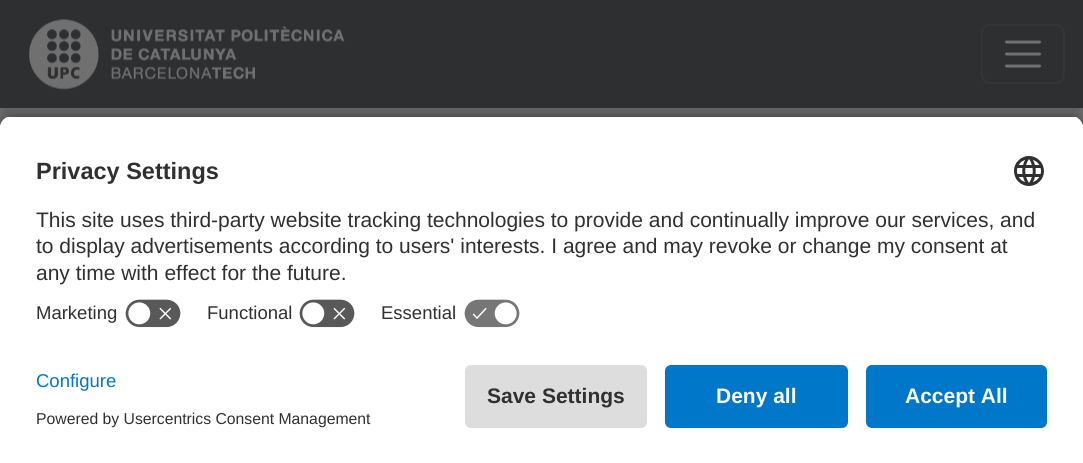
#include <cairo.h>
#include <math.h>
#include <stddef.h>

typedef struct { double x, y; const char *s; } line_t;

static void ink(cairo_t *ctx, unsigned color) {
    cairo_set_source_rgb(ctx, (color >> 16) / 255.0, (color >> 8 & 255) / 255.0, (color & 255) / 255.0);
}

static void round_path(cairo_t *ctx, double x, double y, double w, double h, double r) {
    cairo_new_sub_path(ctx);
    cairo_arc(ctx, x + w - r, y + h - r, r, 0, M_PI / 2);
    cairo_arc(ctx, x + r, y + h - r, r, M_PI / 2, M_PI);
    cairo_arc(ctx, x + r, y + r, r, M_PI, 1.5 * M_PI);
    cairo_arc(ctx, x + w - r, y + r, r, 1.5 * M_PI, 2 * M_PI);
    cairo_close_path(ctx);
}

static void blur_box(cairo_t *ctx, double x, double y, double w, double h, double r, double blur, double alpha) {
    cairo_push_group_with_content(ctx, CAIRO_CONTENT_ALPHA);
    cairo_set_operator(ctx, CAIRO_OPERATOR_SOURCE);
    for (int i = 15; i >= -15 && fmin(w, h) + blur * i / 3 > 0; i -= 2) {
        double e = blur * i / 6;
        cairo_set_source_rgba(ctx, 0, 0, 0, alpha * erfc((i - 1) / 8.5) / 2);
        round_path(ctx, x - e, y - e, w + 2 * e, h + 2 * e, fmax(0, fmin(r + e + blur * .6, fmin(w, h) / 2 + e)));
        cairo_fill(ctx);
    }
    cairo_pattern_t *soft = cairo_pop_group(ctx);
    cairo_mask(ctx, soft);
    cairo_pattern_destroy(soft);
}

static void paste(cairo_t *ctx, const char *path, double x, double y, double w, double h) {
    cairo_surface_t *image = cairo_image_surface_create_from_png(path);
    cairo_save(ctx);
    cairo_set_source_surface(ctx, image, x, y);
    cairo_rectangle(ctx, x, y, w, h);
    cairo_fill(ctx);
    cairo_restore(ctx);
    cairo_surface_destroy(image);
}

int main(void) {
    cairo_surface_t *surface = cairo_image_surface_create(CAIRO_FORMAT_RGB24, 1083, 463);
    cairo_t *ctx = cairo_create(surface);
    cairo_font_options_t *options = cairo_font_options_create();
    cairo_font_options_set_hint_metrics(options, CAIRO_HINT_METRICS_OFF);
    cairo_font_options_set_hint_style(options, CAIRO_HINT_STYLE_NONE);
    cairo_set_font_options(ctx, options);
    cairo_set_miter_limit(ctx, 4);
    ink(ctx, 0x707070);
    cairo_paint(ctx);
    ink(ctx, 0x242424);
    blur_box(ctx, 0, 11, 1083, 108, 0, 6, 0.2);
    ink(ctx, 0x2E2F30);
    cairo_rectangle(ctx, 0, 0, 1083, 108);
    cairo_fill(ctx);
    paste(ctx, "media/1.png", 29, 19, 316, 71);
    round_path(ctx, 982, 25, 82, 58, 8);
    ink(ctx, 0x343536);
    cairo_stroke(ctx);
    cairo_new_path(ctx);
    cairo_move_to(ctx, 1006.5, 42);
    cairo_line_to(ctx, 1039.5, 42);
    cairo_move_to(ctx, 1006.5, 54);
    cairo_line_to(ctx, 1039.5, 54);
    cairo_move_to(ctx, 1006.5, 66);
    cairo_line_to(ctx, 1039.5, 66);
    ink(ctx, 0x707070);
    cairo_set_line_width(ctx, 3);
    cairo_set_line_cap(ctx, CAIRO_LINE_CAP_ROUND);
    cairo_stroke(ctx);
    ink(ctx, 0x000000);
    blur_box(ctx, 0, 120, 1083, 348, 12, 5, 0.8);
    cairo_save(ctx);
    cairo_new_path(ctx);
    cairo_move_to(ctx, 12, 116);
    cairo_line_to(ctx, 1071, 116);
    cairo_curve_to(ctx, 1077.5, 116, 1083, 121.5, 1083, 128);
    cairo_line_to(ctx, 1083, 353);
    cairo_line_to(ctx, 0, 353);
    cairo_line_to(ctx, 0, 128);
    cairo_curve_to(ctx, 0, 121.5, 5.5, 116, 12, 116);
    cairo_close_path(ctx);
    cairo_clip(ctx);
    ink(ctx, 0xFFFFFF);
    cairo_rectangle(ctx, 0, 117, 1083, 236);
    cairo_fill(ctx);
    cairo_rectangle(ctx, 0, 117, 1083, 176);
    cairo_fill(ctx);
    cairo_restore(ctx);
    cairo_select_font_face(ctx, "Liberation Sans", CAIRO_FONT_SLANT_NORMAL, CAIRO_FONT_WEIGHT_BOLD);
    cairo_set_font_size(ctx, 23.5);
    ink(ctx, 0x303030);
    cairo_move_to(ctx, 36, 179);
    cairo_show_text(ctx, "Privacy Settings");
    paste(ctx, "media/2.png", 1014, 156, 30, 30);
    cairo_select_font_face(ctx, "Liberation Sans", CAIRO_FONT_SLANT_NORMAL, CAIRO_FONT_WEIGHT_NORMAL);
    cairo_set_font_size(ctx, 21);
    {
        static const line_t items[] = {
            {36, 227, "This site uses third-party website tracking technologies to provide and continually improve our services, and"},
            {36, 253, "to display advertisements according to users' interests. I agree and may revoke or change my consent at"},
            {36, 280, "any time with effect for the future."},
        };
        for (size_t i = 0; i < sizeof items / sizeof *items; i++) {
            cairo_move_to(ctx, items[i].x, items[i].y);
            cairo_show_text(ctx, items[i].s);
        }
    }
    cairo_set_font_size(ctx, 18.5);
    cairo_move_to(ctx, 36, 319);
    cairo_show_text(ctx, "Marketing");
    paste(ctx, "media/3.png", 125, 299, 56, 29);
    cairo_move_to(ctx, 207, 319);
    cairo_show_text(ctx, "Functional");
    paste(ctx, "media/3.png", 299, 299, 56, 29);
    cairo_move_to(ctx, 381, 319);
    cairo_show_text(ctx, "Essential");
    paste(ctx, "media/4.png", 464, 299, 56, 29);
    ink(ctx, 0xFFFFFF);
    cairo_rectangle(ctx, 0, 353, 1083, 110);
    cairo_fill(ctx);
    ink(ctx, 0x0077C8);
    cairo_move_to(ctx, 36, 387);
    cairo_show_text(ctx, "Configure");
    cairo_set_font_size(ctx, 15.75);
    ink(ctx, 0x303030);
    cairo_move_to(ctx, 36, 424);
    cairo_show_text(ctx, "Powered by Usercentrics Consent Management");
    ink(ctx, 0xDDDDDD);
    round_path(ctx, 465, 365, 182, 63, 6);
    cairo_fill(ctx);
    cairo_select_font_face(ctx, "Liberation Sans", CAIRO_FONT_SLANT_NORMAL, CAIRO_FONT_WEIGHT_BOLD);
    cairo_set_font_size(ctx, 21);
    ink(ctx, 0x303030);
    cairo_move_to(ctx, 487, 403);
    cairo_show_text(ctx, "Save Settings");
    ink(ctx, 0x0077C8);
    round_path(ctx, 665, 365, 183, 63, 6);
    cairo_fill(ctx);
    ink(ctx, 0xFAFAFA);
    cairo_move_to(ctx, 716, 403);
    cairo_show_text(ctx, "Deny all");
    ink(ctx, 0x0077C8);
    round_path(ctx, 866, 365, 181, 63, 6);
    cairo_fill(ctx);
    ink(ctx, 0xFAFAFA);
    cairo_move_to(ctx, 905, 403);
    cairo_show_text(ctx, "Accept All");
    cairo_surface_write_to_png(surface, "image.png");
    cairo_font_options_destroy(options);
    cairo_destroy(ctx);
    cairo_surface_destroy(surface);
    return 0;
}
